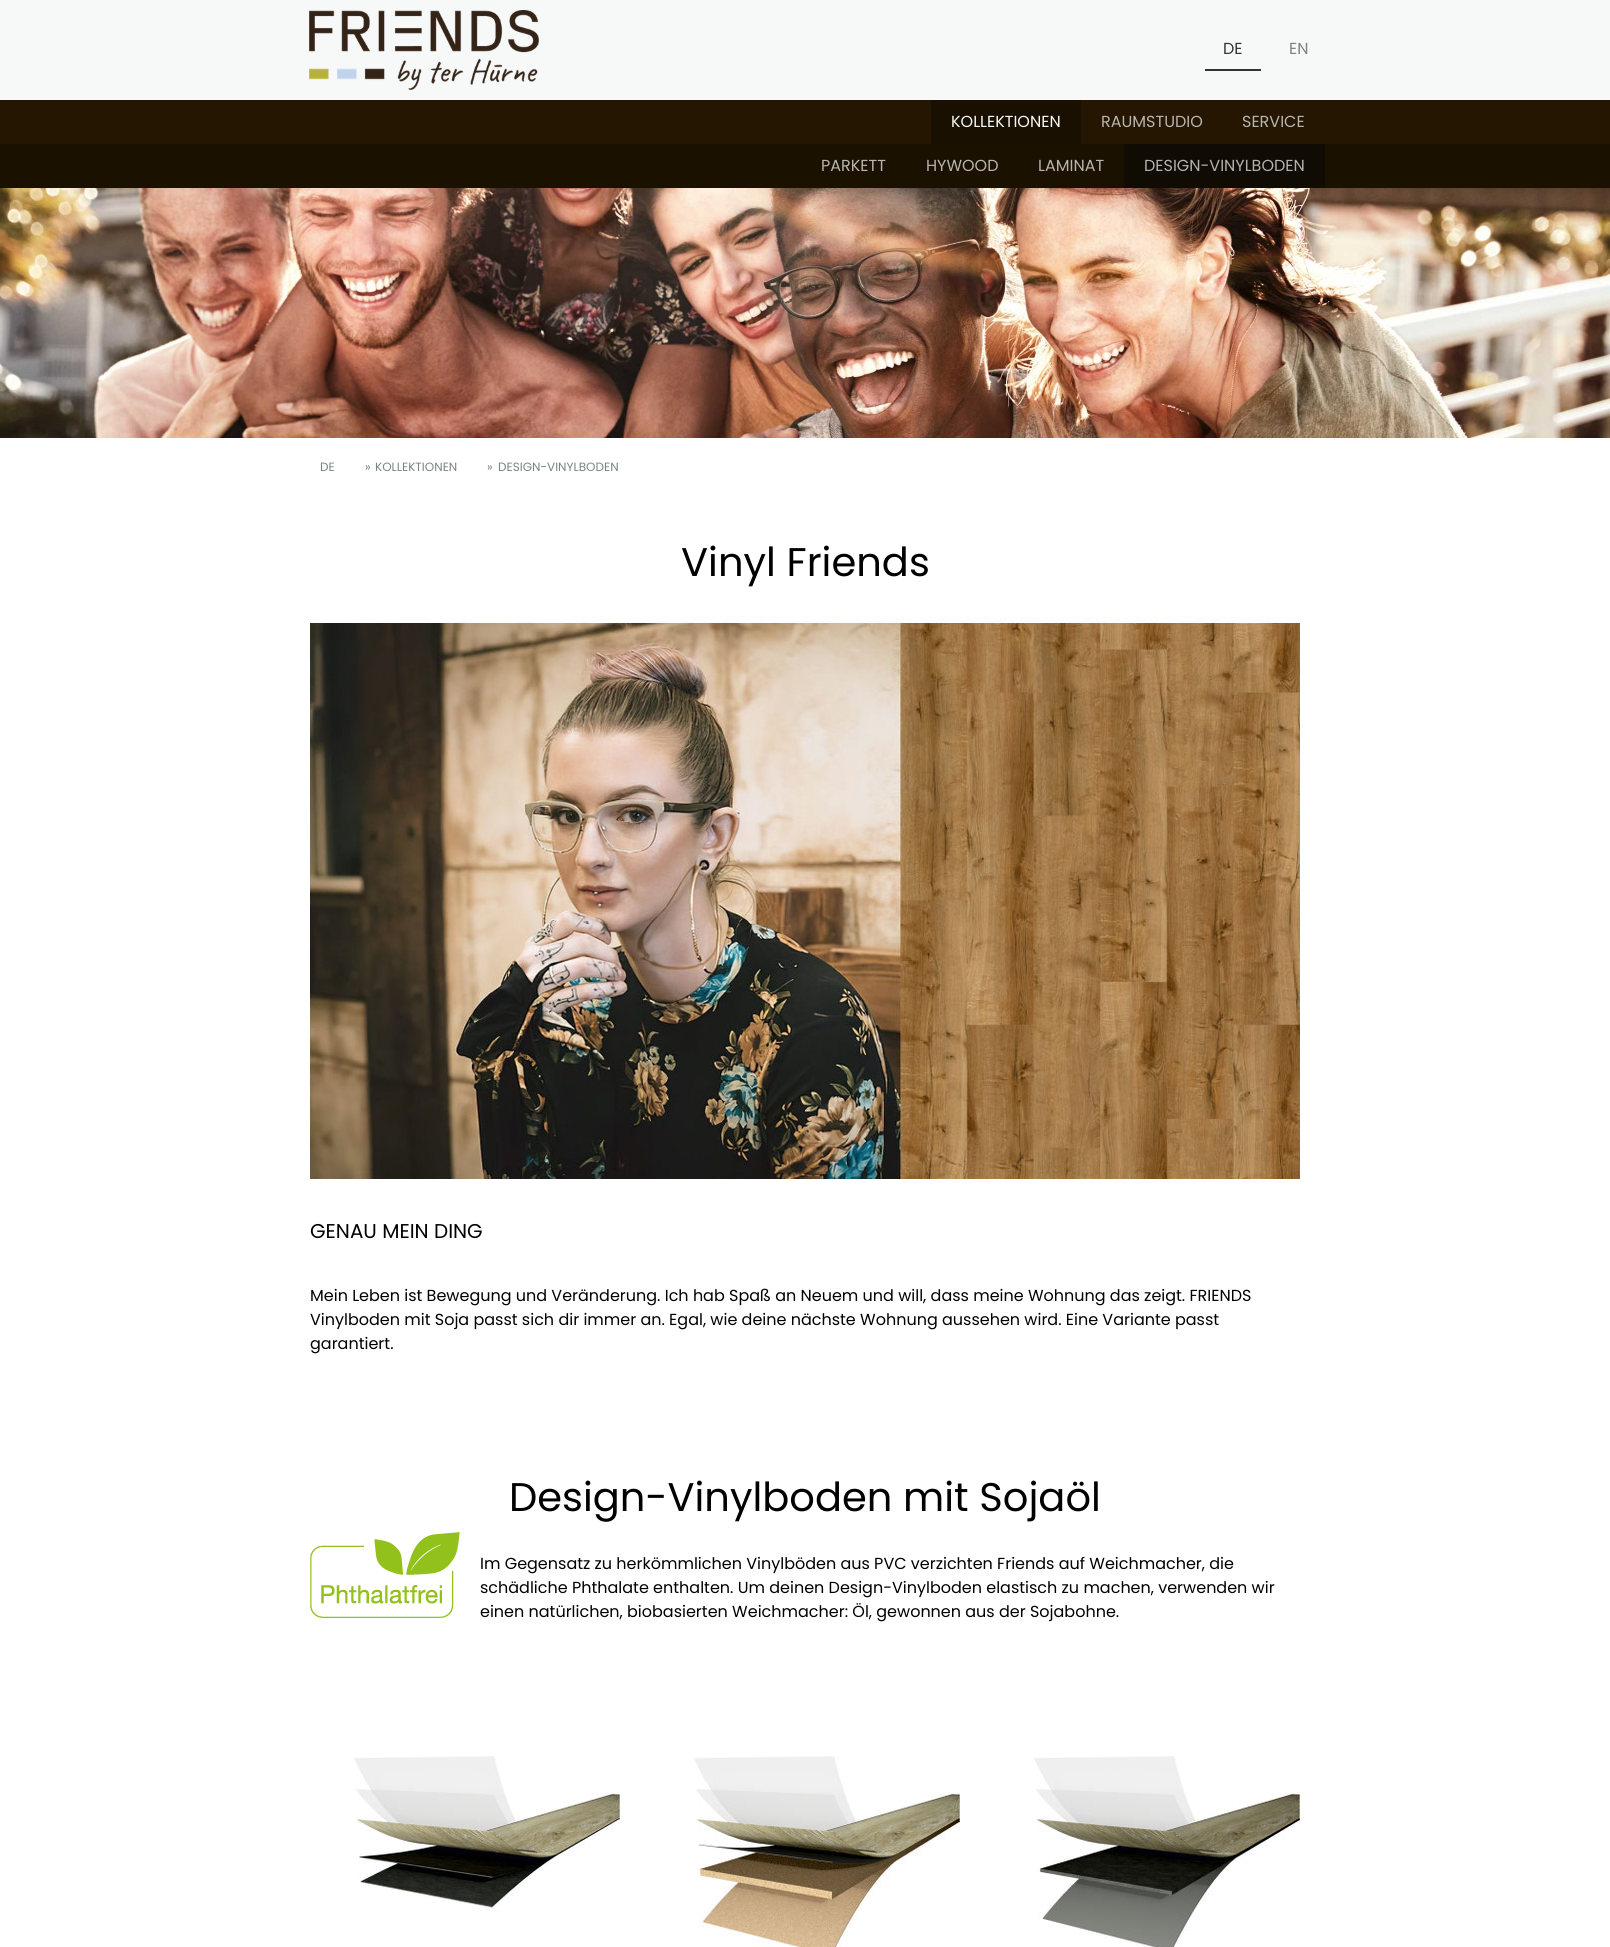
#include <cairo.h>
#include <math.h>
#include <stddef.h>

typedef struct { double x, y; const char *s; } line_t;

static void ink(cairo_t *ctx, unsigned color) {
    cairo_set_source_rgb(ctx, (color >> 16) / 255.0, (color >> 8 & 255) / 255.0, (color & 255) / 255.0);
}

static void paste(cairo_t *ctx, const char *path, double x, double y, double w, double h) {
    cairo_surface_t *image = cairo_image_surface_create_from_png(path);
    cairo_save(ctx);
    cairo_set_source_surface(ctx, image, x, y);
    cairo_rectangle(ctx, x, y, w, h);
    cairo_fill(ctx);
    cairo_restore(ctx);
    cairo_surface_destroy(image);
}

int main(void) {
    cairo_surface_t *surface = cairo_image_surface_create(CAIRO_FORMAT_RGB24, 1610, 1947);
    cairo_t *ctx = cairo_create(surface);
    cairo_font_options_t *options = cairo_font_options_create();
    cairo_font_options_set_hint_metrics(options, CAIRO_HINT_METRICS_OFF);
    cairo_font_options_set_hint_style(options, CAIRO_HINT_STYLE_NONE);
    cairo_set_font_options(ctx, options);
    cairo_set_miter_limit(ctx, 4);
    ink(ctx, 0xFFFFFF);
    cairo_paint(ctx);
    ink(ctx, 0xF7F8F8);
    cairo_rectangle(ctx, 0, 0, 1610, 100);
    cairo_fill(ctx);
    paste(ctx, "media/1.png", 309, 10, 230, 80);
    ink(ctx, 0x333333);
    cairo_rectangle(ctx, 1205, 69, 56, 2);
    cairo_fill(ctx);
    cairo_select_font_face(ctx, "Poppins", CAIRO_FONT_SLANT_NORMAL, CAIRO_FONT_WEIGHT_NORMAL);
    cairo_set_font_size(ctx, 16);
    cairo_move_to(ctx, 1223, 54);
    cairo_show_text(ctx, "DE");
    ink(ctx, 0x798486);
    cairo_move_to(ctx, 1289, 54);
    cairo_show_text(ctx, "EN");
    ink(ctx, 0x241600);
    cairo_rectangle(ctx, 0, 100, 1610, 44);
    cairo_fill(ctx);
    ink(ctx, 0x191001);
    cairo_rectangle(ctx, 931, 100, 150, 44);
    cairo_fill(ctx);
    ink(ctx, 0xF7F8F8);
    cairo_move_to(ctx, 951, 127);
    cairo_show_text(ctx, "KOLLEKTIONEN");
    ink(ctx, 0xB8B4AE);
    cairo_move_to(ctx, 1101, 127);
    cairo_show_text(ctx, "RAUMSTUDIO");
    cairo_move_to(ctx, 1242, 127);
    cairo_show_text(ctx, "SERVICE");
    ink(ctx, 0x1A1101);
    cairo_rectangle(ctx, 0, 144, 1610, 44);
    cairo_fill(ctx);
    ink(ctx, 0xB8B4AE);
    {
        static const line_t items[] = {
            {821, 171, "PARKETT"},
            {926, 171, "HYWOOD"},
            {1038, 171, "LAMINAT"},
        };
        for (size_t i = 0; i < sizeof items / sizeof *items; i++) {
            cairo_move_to(ctx, items[i].x, items[i].y);
            cairo_show_text(ctx, items[i].s);
        }
    }
    ink(ctx, 0x110C03);
    cairo_rectangle(ctx, 1124, 144, 201, 44);
    cairo_fill(ctx);
    ink(ctx, 0xB2B1AF);
    cairo_move_to(ctx, 1144, 171);
    cairo_show_text(ctx, "DESIGN-VINYLBODEN");
    paste(ctx, "media/2.png", 0, 188, 1610, 250);
    cairo_set_font_size(ctx, 12);
    ink(ctx, 0x798486);
    {
        static const line_t items[] = {
            {320, 471, "DE"},
            {365, 471, "»"},
            {375, 471, "KOLLEKTIONEN"},
            {487, 471, "»"},
            {498, 471, "DESIGN-VINYLBODEN"},
        };
        for (size_t i = 0; i < sizeof items / sizeof *items; i++) {
            cairo_move_to(ctx, items[i].x, items[i].y);
            cairo_show_text(ctx, items[i].s);
        }
    }
    cairo_set_font_size(ctx, 40);
    ink(ctx, 0x000000);
    cairo_move_to(ctx, 681, 576);
    cairo_show_text(ctx, "Vinyl Friends");
    paste(ctx, "media/3.png", 310, 623, 990, 556);
    cairo_set_font_size(ctx, 20);
    cairo_move_to(ctx, 310, 1238);
    cairo_show_text(ctx, "GENAU MEIN DING");
    cairo_set_font_size(ctx, 16);
    {
        static const line_t items[] = {
            {310, 1301, "Mein Leben ist Bewegung und Veränderung. Ich hab Spaß an Neuem und will, dass meine Wohnung das zeigt. FRIENDS"},
            {310, 1325, "Vinylboden mit Soja passt sich dir immer an. Egal, wie deine nächste Wohnung aussehen wird. Eine Variante passt"},
            {310, 1349, "garantiert."},
        };
        for (size_t i = 0; i < sizeof items / sizeof *items; i++) {
            cairo_move_to(ctx, items[i].x, items[i].y);
            cairo_show_text(ctx, items[i].s);
        }
    }
    cairo_set_font_size(ctx, 40);
    cairo_move_to(ctx, 509, 1511);
    cairo_show_text(ctx, "Design-Vinylboden mit Sojaöl");
    paste(ctx, "media/4.png", 310, 1532, 150, 86);
    cairo_set_font_size(ctx, 16);
    {
        static const line_t items[] = {
            {480, 1569, "Im Gegensatz zu herkömmlichen Vinylböden aus PVC verzichten Friends auf Weichmacher, die"},
            {480, 1593, "schädliche Phthalate enthalten. Um deinen Design-Vinylboden elastisch zu machen, verwenden wir"},
            {480, 1617, "einen natürlichen, biobasierten Weichmacher: Öl, gewonnen aus der Sojabohne."},
        };
        for (size_t i = 0; i < sizeof items / sizeof *items; i++) {
            cairo_move_to(ctx, items[i].x, items[i].y);
            cairo_show_text(ctx, items[i].s);
        }
    }
    paste(ctx, "media/5.png", 354, 1756, 266, 156);
    paste(ctx, "media/6.png", 694, 1756, 266, 191);
    paste(ctx, "media/7.png", 1030, 1756, 270, 191);
    cairo_surface_write_to_png(surface, "image.png");
    cairo_font_options_destroy(options);
    cairo_destroy(ctx);
    cairo_surface_destroy(surface);
    return 0;
}
